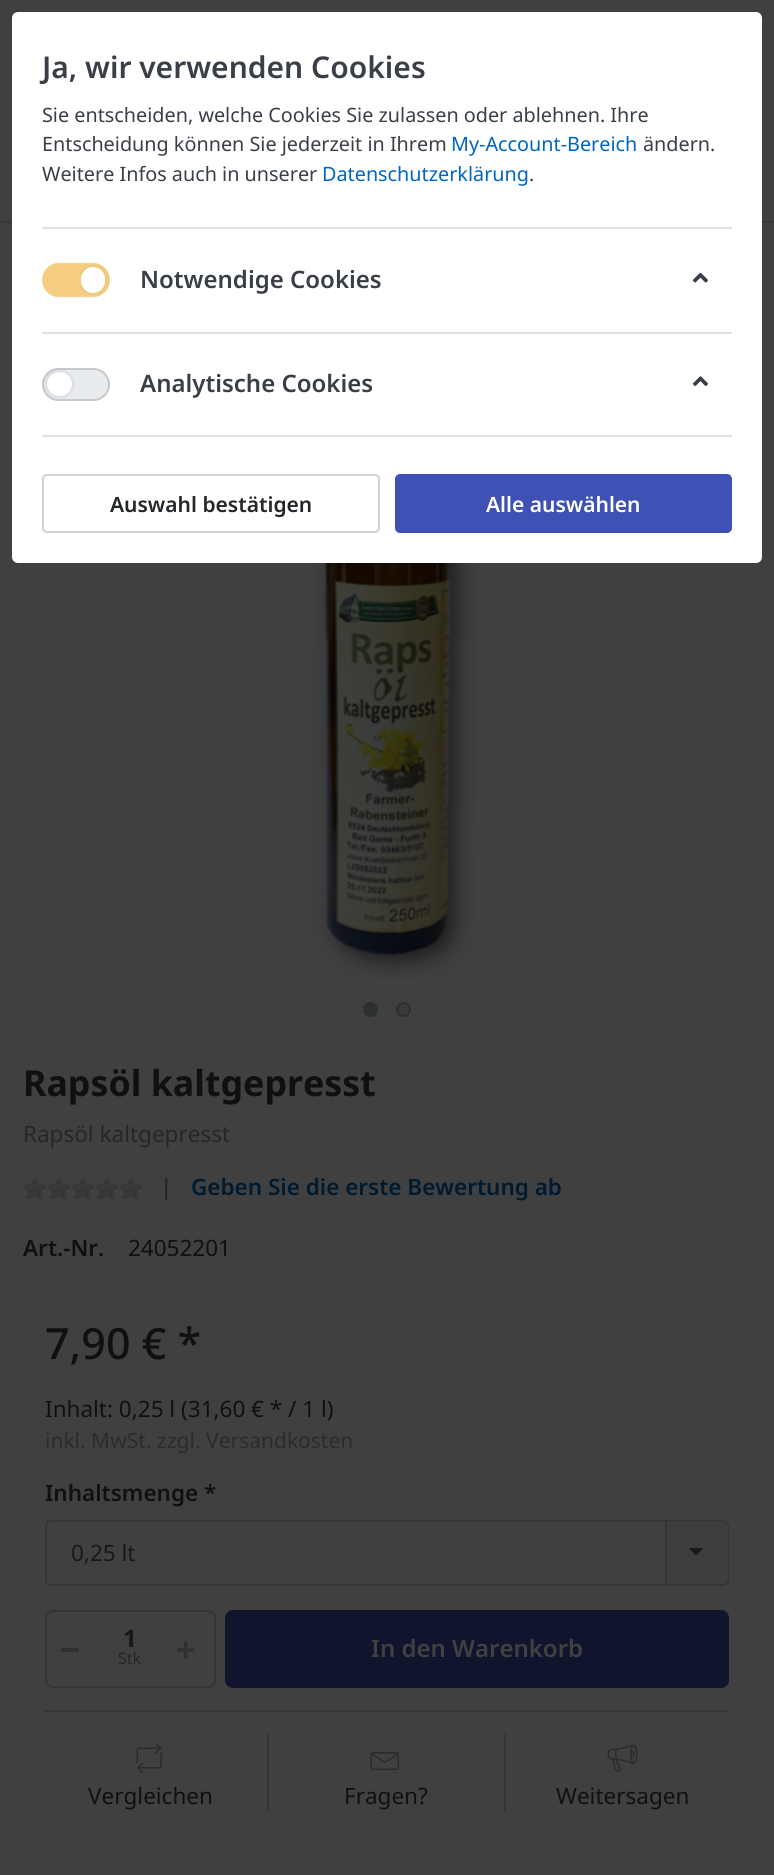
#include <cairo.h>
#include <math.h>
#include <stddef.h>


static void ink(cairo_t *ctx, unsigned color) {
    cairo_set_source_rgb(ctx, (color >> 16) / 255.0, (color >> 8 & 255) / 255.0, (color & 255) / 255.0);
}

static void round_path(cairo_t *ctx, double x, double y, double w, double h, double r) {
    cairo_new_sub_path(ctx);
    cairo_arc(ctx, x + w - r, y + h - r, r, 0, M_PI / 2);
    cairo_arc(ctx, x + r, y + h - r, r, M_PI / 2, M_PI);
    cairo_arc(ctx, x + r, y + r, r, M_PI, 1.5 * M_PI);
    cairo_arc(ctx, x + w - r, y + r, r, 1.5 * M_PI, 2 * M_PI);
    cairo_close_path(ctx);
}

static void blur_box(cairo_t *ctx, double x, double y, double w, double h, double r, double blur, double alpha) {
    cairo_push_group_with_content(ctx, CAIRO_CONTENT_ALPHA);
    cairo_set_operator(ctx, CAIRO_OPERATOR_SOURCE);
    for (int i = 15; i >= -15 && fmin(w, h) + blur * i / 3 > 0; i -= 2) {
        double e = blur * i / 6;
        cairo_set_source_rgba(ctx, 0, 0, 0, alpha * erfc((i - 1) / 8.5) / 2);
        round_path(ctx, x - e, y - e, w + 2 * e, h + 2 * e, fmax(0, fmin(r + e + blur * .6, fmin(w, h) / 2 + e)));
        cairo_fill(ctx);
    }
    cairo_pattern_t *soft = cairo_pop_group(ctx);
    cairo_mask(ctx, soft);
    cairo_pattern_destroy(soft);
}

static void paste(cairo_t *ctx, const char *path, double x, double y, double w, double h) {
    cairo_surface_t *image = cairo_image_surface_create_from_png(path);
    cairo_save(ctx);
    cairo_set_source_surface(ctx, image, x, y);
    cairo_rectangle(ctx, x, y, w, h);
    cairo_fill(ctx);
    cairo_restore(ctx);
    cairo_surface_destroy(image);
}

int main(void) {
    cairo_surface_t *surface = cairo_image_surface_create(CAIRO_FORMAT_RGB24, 774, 1875);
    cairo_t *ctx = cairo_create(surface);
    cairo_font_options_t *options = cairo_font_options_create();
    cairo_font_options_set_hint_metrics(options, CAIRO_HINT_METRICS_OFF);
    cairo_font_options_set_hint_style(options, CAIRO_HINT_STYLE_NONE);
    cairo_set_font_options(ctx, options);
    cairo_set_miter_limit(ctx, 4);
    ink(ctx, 0x404040);
    cairo_paint(ctx);
    ink(ctx, 0x383838);
    cairo_rectangle(ctx, 0, 221, 774, 2);
    cairo_fill(ctx);
    ink(ctx, 0xFFFFFF);
    round_path(ctx, 12, 12, 750, 551, 6);
    cairo_fill(ctx);
    cairo_select_font_face(ctx, "Noto Sans SemiBold", CAIRO_FONT_SLANT_NORMAL, CAIRO_FONT_WEIGHT_NORMAL);
    cairo_set_font_size(ctx, 30);
    ink(ctx, 0x393F46);
    cairo_move_to(ctx, 42, 78);
    cairo_show_text(ctx, "Ja, wir verwenden Cookies");
    cairo_select_font_face(ctx, "Noto Sans", CAIRO_FONT_SLANT_NORMAL, CAIRO_FONT_WEIGHT_NORMAL);
    cairo_set_font_size(ctx, 19.8);
    cairo_move_to(ctx, 42, 122);
    cairo_show_text(ctx, "Sie entscheiden, welche Cookies Sie zulassen oder ablehnen. Ihre");
    cairo_move_to(ctx, 42, 151);
    cairo_show_text(ctx, "Entscheidung können Sie jederzeit in Ihrem");
    ink(ctx, 0x0066C0);
    cairo_move_to(ctx, 451, 151);
    cairo_show_text(ctx, "My-Account-Bereich");
    ink(ctx, 0x393F46);
    cairo_move_to(ctx, 643, 151);
    cairo_show_text(ctx, "ändern.");
    cairo_move_to(ctx, 42, 181);
    cairo_show_text(ctx, "Weitere Infos auch in unserer");
    ink(ctx, 0x0066C0);
    cairo_move_to(ctx, 322, 181);
    cairo_show_text(ctx, "Datenschutzerklärung");
    ink(ctx, 0x393F46);
    cairo_move_to(ctx, 529, 181);
    cairo_show_text(ctx, ".");
    ink(ctx, 0xDEE2E6);
    cairo_rectangle(ctx, 42, 227, 690, 2);
    cairo_fill(ctx);
    cairo_rectangle(ctx, 42, 332, 690, 2);
    cairo_fill(ctx);
    ink(ctx, 0xF7CD80);
    round_path(ctx, 42, 263, 68, 34, 17);
    cairo_fill(ctx);
    ink(ctx, 0x808080);
    blur_box(ctx, 81, 267, 24, 26, 12, 2, 0.2);
    ink(ctx, 0xFFFFFF);
    round_path(ctx, 81, 267, 24, 26, 12);
    cairo_fill(ctx);
    cairo_select_font_face(ctx, "Noto Sans SemiBold", CAIRO_FONT_SLANT_NORMAL, CAIRO_FONT_WEIGHT_NORMAL);
    cairo_set_font_size(ctx, 24);
    ink(ctx, 0x393F46);
    cairo_move_to(ctx, 140, 288);
    cairo_show_text(ctx, "Notwendige Cookies");
    paste(ctx, "media/1.png", 693, 272, 15, 11);
    ink(ctx, 0xDEE2E6);
    cairo_rectangle(ctx, 42, 435, 690, 2);
    cairo_fill(ctx);
    ink(ctx, 0xE9ECEF);
    round_path(ctx, 42, 368, 68, 33, 16.5);
    cairo_fill(ctx);
    round_path(ctx, 43, 369, 66, 31, 15.5);
    cairo_set_source_rgba(ctx, 0, 0, 0, 0.15);
    cairo_stroke(ctx);
    ink(ctx, 0x000000);
    blur_box(ctx, 47, 372, 25, 24, 12, 2, 0.2);
    ink(ctx, 0xFFFFFF);
    round_path(ctx, 47, 372, 25, 24, 12);
    cairo_fill(ctx);
    ink(ctx, 0x393F46);
    cairo_move_to(ctx, 140, 392);
    cairo_show_text(ctx, "Analytische Cookies");
    paste(ctx, "media/2.png", 693, 376, 15, 10);
    round_path(ctx, 43, 475, 336, 57, 4);
    ink(ctx, 0xCED4DA);
    cairo_stroke(ctx);
    cairo_set_font_size(ctx, 21);
    ink(ctx, 0x23272A);
    cairo_move_to(ctx, 110, 512);
    cairo_show_text(ctx, "Auswahl bestätigen");
    ink(ctx, 0x3F51B5);
    round_path(ctx, 396, 475, 335, 57, 4);
    cairo_fill_preserve(ctx);
    cairo_stroke(ctx);
    ink(ctx, 0xFFFFFF);
    cairo_move_to(ctx, 486, 512);
    cairo_show_text(ctx, "Alle auswählen");
    paste(ctx, "media/3.png", 313, 563, 163, 416);
    ink(ctx, 0x2C2F31);
    cairo_arc(ctx, 370.5, 1009.5, 6.5, 0, 2 * M_PI);
    cairo_fill_preserve(ctx);
    cairo_stroke(ctx);
    ink(ctx, 0x38393A);
    cairo_arc(ctx, 403.5, 1009.5, 6.5, 0, 2 * M_PI);
    cairo_fill_preserve(ctx);
    ink(ctx, 0x2C2F31);
    cairo_stroke(ctx);
    cairo_select_font_face(ctx, "Noto Sans", CAIRO_FONT_SLANT_NORMAL, CAIRO_FONT_WEIGHT_BOLD);
    cairo_set_font_size(ctx, 35.75);
    ink(ctx, 0x0E1012);
    cairo_move_to(ctx, 23, 1096);
    cairo_show_text(ctx, "Rapsöl kaltgepresst");
    cairo_select_font_face(ctx, "Noto Sans", CAIRO_FONT_SLANT_NORMAL, CAIRO_FONT_WEIGHT_NORMAL);
    cairo_set_font_size(ctx, 22.5);
    ink(ctx, 0x23272A);
    cairo_move_to(ctx, 23, 1142);
    cairo_show_text(ctx, "Rapsöl kaltgepresst");
    paste(ctx, "media/4.png", 22, 1177, 121, 24);
    cairo_select_font_face(ctx, "Noto Sans SemiBold", CAIRO_FONT_SLANT_NORMAL, CAIRO_FONT_WEIGHT_NORMAL);
    cairo_move_to(ctx, 160, 1195);
    cairo_show_text(ctx, "|");
    ink(ctx, 0x001A30);
    cairo_move_to(ctx, 191, 1195);
    cairo_show_text(ctx, "Geben Sie die erste Bewertung ab");
    ink(ctx, 0x0E1012);
    cairo_move_to(ctx, 23, 1256);
    cairo_show_text(ctx, "Art.-Nr.");
    cairo_select_font_face(ctx, "Noto Sans", CAIRO_FONT_SLANT_NORMAL, CAIRO_FONT_WEIGHT_NORMAL);
    cairo_move_to(ctx, 128, 1256);
    cairo_show_text(ctx, "24052201");
    cairo_select_font_face(ctx, "Noto Sans Medium", CAIRO_FONT_SLANT_NORMAL, CAIRO_FONT_WEIGHT_NORMAL);
    cairo_set_font_size(ctx, 43);
    cairo_move_to(ctx, 45, 1359);
    cairo_show_text(ctx, "7,90 € *");
    cairo_select_font_face(ctx, "Noto Sans", CAIRO_FONT_SLANT_NORMAL, CAIRO_FONT_WEIGHT_NORMAL);
    cairo_set_font_size(ctx, 22.5);
    cairo_move_to(ctx, 45, 1417);
    cairo_show_text(ctx, "Inhalt: 0,25 l (31,60 € * / 1 l)");
    cairo_set_font_size(ctx, 21);
    ink(ctx, 0x2B2B2C);
    cairo_move_to(ctx, 45, 1448);
    cairo_show_text(ctx, "inkl. MwSt. zzgl. Versandkosten");
    cairo_select_font_face(ctx, "Noto Sans SemiBold", CAIRO_FONT_SLANT_NORMAL, CAIRO_FONT_WEIGHT_NORMAL);
    cairo_set_font_size(ctx, 22.5);
    ink(ctx, 0x0E1012);
    cairo_move_to(ctx, 45, 1501);
    cairo_show_text(ctx, "Inhaltsmenge *");
    round_path(ctx, 46, 1521, 682, 64, 5);
    ink(ctx, 0x343537);
    cairo_stroke(ctx);
    cairo_select_font_face(ctx, "Noto Sans", CAIRO_FONT_SLANT_NORMAL, CAIRO_FONT_WEIGHT_NORMAL);
    ink(ctx, 0x16181A);
    cairo_move_to(ctx, 71, 1561);
    cairo_show_text(ctx, "0,25 lt");
    ink(ctx, 0x3E3E3E);
    cairo_new_path(ctx);
    cairo_move_to(ctx, 666, 1521);
    cairo_line_to(ctx, 722, 1521);
    cairo_curve_to(ctx, 725.5, 1521, 728, 1523.5, 728, 1527);
    cairo_line_to(ctx, 728, 1578);
    cairo_curve_to(ctx, 728, 1581.5, 725.5, 1584, 722, 1584);
    cairo_line_to(ctx, 666, 1584);
    cairo_close_path(ctx);
    cairo_fill(ctx);
    ink(ctx, 0x343537);
    cairo_rectangle(ctx, 665, 1521, 2, 63);
    cairo_fill(ctx);
    ink(ctx, 0x16181A);
    cairo_new_path(ctx);
    cairo_move_to(ctx, 688.5, 1548);
    cairo_line_to(ctx, 703.5, 1548);
    cairo_line_to(ctx, 696, 1555.5);
    cairo_close_path(ctx);
    cairo_fill(ctx);
    round_path(ctx, 46, 1611, 169, 76, 7);
    ink(ctx, 0x343537);
    cairo_stroke(ctx);
    cairo_select_font_face(ctx, "Noto Sans", CAIRO_FONT_SLANT_NORMAL, CAIRO_FONT_WEIGHT_BOLD);
    cairo_set_font_size(ctx, 24);
    ink(ctx, 0x16181A);
    cairo_move_to(ctx, 123, 1647);
    cairo_show_text(ctx, "1");
    ink(ctx, 0x2F3030);
    cairo_rectangle(ctx, 61, 1648, 18, 4);
    cairo_fill(ctx);
    paste(ctx, "media/5.png", 177, 1641, 18, 18);
    cairo_select_font_face(ctx, "Noto Sans", CAIRO_FONT_SLANT_NORMAL, CAIRO_FONT_WEIGHT_NORMAL);
    cairo_set_font_size(ctx, 16);
    ink(ctx, 0x23272A);
    cairo_move_to(ctx, 118, 1664);
    cairo_show_text(ctx, "Stk");
    ink(ctx, 0x10142D);
    round_path(ctx, 226, 1611, 502, 76, 7);
    cairo_fill_preserve(ctx);
    cairo_stroke(ctx);
    cairo_select_font_face(ctx, "Noto Sans SemiBold", CAIRO_FONT_SLANT_NORMAL, CAIRO_FONT_WEIGHT_NORMAL);
    cairo_set_font_size(ctx, 24);
    ink(ctx, 0x404040);
    cairo_move_to(ctx, 371, 1657);
    cairo_show_text(ctx, "In den Warenkorb");
    ink(ctx, 0x353535);
    cairo_rectangle(ctx, 45, 1710, 684, 2);
    cairo_fill(ctx);
    cairo_rectangle(ctx, 267, 1734, 2, 77);
    cairo_fill(ctx);
    paste(ctx, "media/6.png", 136, 1743, 26, 30);
    cairo_select_font_face(ctx, "Noto Sans", CAIRO_FONT_SLANT_NORMAL, CAIRO_FONT_WEIGHT_NORMAL);
    cairo_set_font_size(ctx, 22.5);
    ink(ctx, 0x0E1012);
    cairo_move_to(ctx, 88, 1804);
    cairo_show_text(ctx, "Vergleichen");
    ink(ctx, 0x353535);
    cairo_rectangle(ctx, 504, 1734, 2, 77);
    cairo_fill(ctx);
    paste(ctx, "media/7.png", 370, 1752, 29, 18);
    ink(ctx, 0x0E1012);
    cairo_move_to(ctx, 344, 1804);
    cairo_show_text(ctx, "Fragen?");
    paste(ctx, "media/8.png", 607, 1744, 31, 28);
    cairo_move_to(ctx, 556, 1804);
    cairo_show_text(ctx, "Weitersagen");
    cairo_surface_write_to_png(surface, "image.png");
    cairo_font_options_destroy(options);
    cairo_destroy(ctx);
    cairo_surface_destroy(surface);
    return 0;
}
